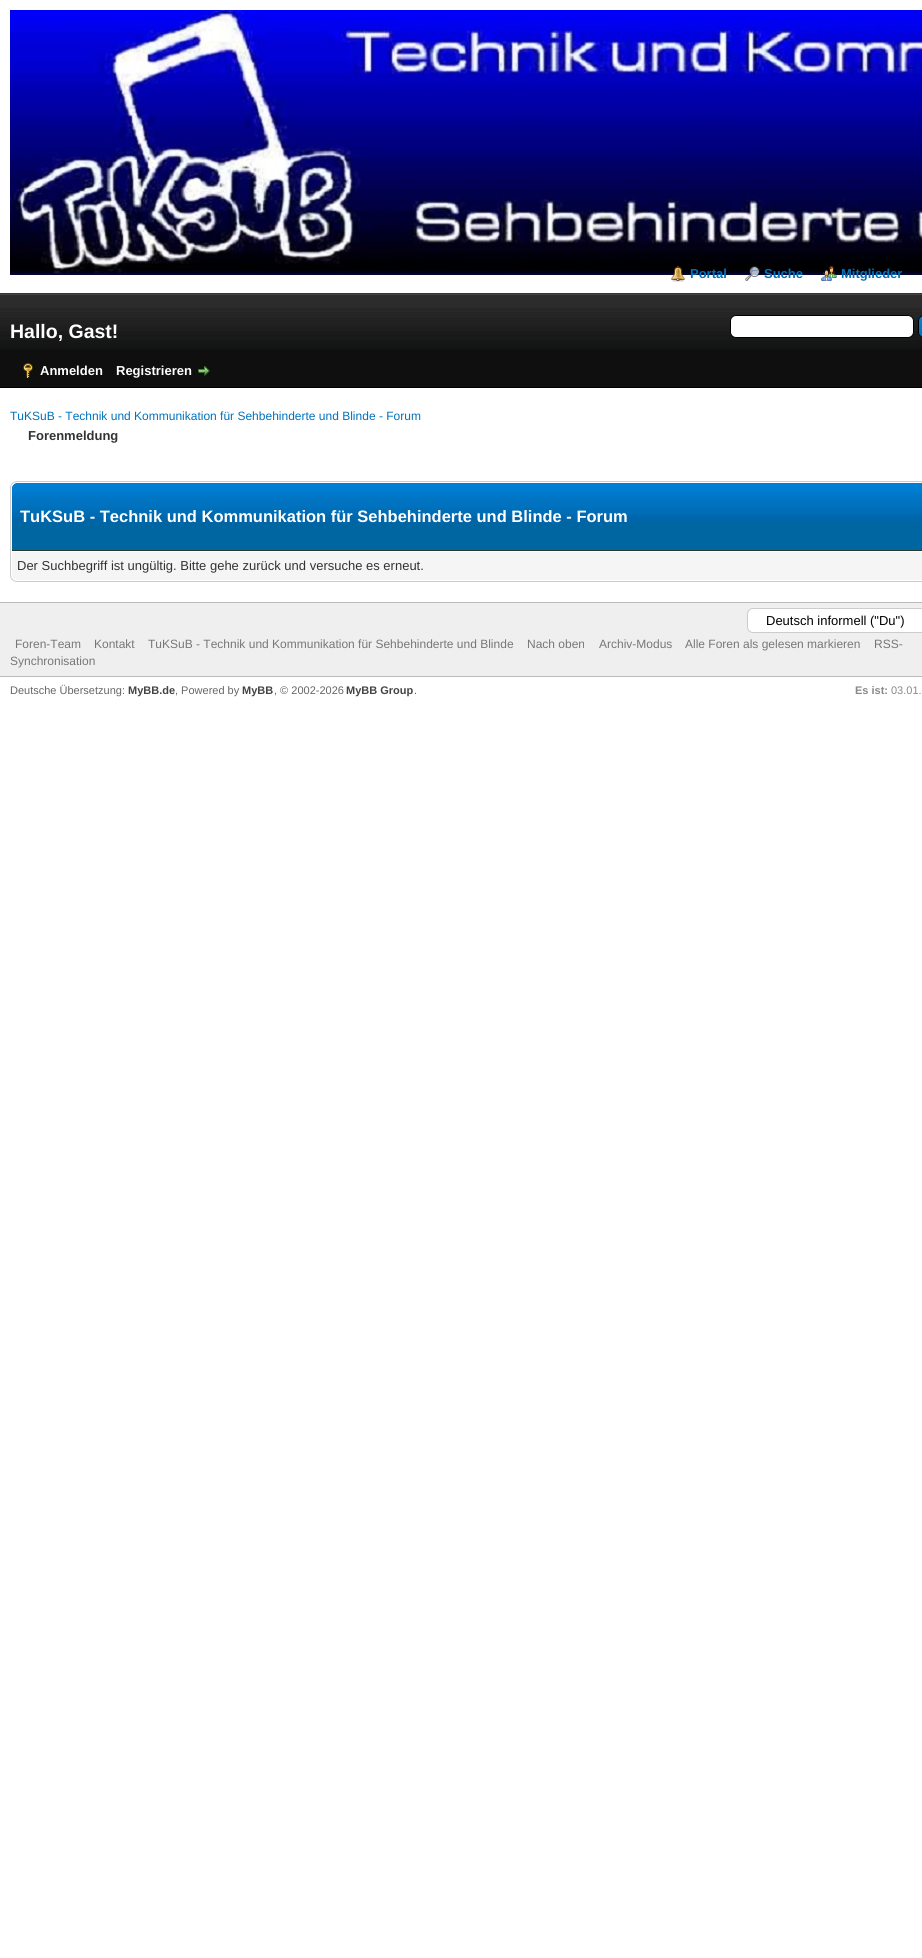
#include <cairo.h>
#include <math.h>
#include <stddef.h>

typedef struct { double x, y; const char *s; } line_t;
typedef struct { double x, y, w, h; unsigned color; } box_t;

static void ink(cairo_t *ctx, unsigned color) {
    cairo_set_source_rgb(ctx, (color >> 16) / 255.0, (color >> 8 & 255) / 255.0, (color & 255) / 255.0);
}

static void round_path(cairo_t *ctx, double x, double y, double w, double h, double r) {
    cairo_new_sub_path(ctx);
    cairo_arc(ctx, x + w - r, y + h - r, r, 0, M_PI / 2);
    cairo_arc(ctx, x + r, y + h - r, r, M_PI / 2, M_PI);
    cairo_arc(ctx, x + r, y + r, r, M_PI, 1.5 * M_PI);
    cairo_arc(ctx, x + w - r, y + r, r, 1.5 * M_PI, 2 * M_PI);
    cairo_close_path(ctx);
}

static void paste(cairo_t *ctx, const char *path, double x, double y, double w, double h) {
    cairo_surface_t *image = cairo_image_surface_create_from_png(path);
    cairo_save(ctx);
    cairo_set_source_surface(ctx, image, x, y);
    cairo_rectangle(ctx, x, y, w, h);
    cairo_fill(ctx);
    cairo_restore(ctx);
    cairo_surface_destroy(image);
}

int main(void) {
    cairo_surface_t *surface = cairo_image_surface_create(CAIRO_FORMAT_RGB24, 922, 1958);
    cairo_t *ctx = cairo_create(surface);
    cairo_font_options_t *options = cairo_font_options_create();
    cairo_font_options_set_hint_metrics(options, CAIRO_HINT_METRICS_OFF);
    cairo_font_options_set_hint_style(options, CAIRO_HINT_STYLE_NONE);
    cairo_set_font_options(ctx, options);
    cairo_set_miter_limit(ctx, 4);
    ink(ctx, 0xFFFFFF);
    cairo_paint(ctx);
    ink(ctx, 0x263C30);
    cairo_rectangle(ctx, 0, 293, 922, 1);
    cairo_fill(ctx);
    paste(ctx, "media/1.png", 10, 10, 912, 265);
    paste(ctx, "media/2.png", 671, 266, 14, 16);
    cairo_select_font_face(ctx, "Liberation Sans", CAIRO_FONT_SLANT_NORMAL, CAIRO_FONT_WEIGHT_BOLD);
    cairo_set_font_size(ctx, 13);
    ink(ctx, 0x0072BC);
    cairo_move_to(ctx, 690, 278);
    cairo_show_text(ctx, "Portal");
    paste(ctx, "media/3.png", 745, 266, 15, 15);
    cairo_move_to(ctx, 764, 278);
    cairo_show_text(ctx, "Suche");
    paste(ctx, "media/4.png", 821, 266, 16, 15);
    cairo_move_to(ctx, 841, 278);
    cairo_show_text(ctx, "Mitglieder");
    ink(ctx, 0x0F0F0F);
    cairo_rectangle(ctx, 0, 350, 922, 37);
    cairo_fill(ctx);
    paste(ctx, "media/5.png", 0, 295, 922, 55);
    ink(ctx, 0x444444);
    cairo_rectangle(ctx, 0, 294, 922, 1);
    cairo_fill(ctx);
    ink(ctx, 0x000000);
    cairo_rectangle(ctx, 0, 387, 922, 1);
    cairo_fill(ctx);
    cairo_set_font_size(ctx, 19.5);
    ink(ctx, 0xFFFFFF);
    cairo_move_to(ctx, 10, 338);
    cairo_show_text(ctx, "Hallo, Gast!");
    paste(ctx, "media/6.png", 23, 363, 10, 15);
    cairo_set_font_size(ctx, 13);
    cairo_move_to(ctx, 40, 375);
    cairo_show_text(ctx, "Anmelden");
    cairo_move_to(ctx, 116, 375);
    cairo_show_text(ctx, "Registrieren");
    paste(ctx, "media/7.png", 198, 366, 12, 10);
    round_path(ctx, 730.5, 315.5, 183, 22, 5.5);
    cairo_fill_preserve(ctx);
    ink(ctx, 0x000000);
    cairo_set_line_width(ctx, 1);
    cairo_stroke(ctx);
    paste(ctx, "media/8.png", 918, 316, 4, 22);
    round_path(ctx, 918.5, 315.5, 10, 22, 5.5);
    cairo_stroke(ctx);
    cairo_select_font_face(ctx, "Liberation Sans", CAIRO_FONT_SLANT_NORMAL, CAIRO_FONT_WEIGHT_NORMAL);
    cairo_set_font_size(ctx, 12);
    ink(ctx, 0x0072BC);
    cairo_move_to(ctx, 10, 420);
    cairo_show_text(ctx, "TuKSuB - Technik und Kommunikation für Sehbehinderte und Blinde - Forum");
    cairo_select_font_face(ctx, "Liberation Sans", CAIRO_FONT_SLANT_NORMAL, CAIRO_FONT_WEIGHT_BOLD);
    cairo_set_font_size(ctx, 13);
    ink(ctx, 0x333333);
    cairo_move_to(ctx, 28, 440);
    cairo_show_text(ctx, "Forenmeldung");
    round_path(ctx, 10.5, 481.5, 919, 100, 6.5);
    ink(ctx, 0xCCCCCC);
    cairo_stroke(ctx);
    ink(ctx, 0x0066A2);
    cairo_new_path(ctx);
    cairo_move_to(ctx, 18, 483);
    cairo_line_to(ctx, 922, 483);
    cairo_curve_to(ctx, 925.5, 483, 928, 485.5, 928, 489);
    cairo_line_to(ctx, 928, 551);
    cairo_line_to(ctx, 12, 551);
    cairo_line_to(ctx, 12, 489);
    cairo_curve_to(ctx, 12, 485.5, 14.5, 483, 18, 483);
    cairo_close_path(ctx);
    cairo_fill(ctx);
    paste(ctx, "media/9.png", 12, 483, 910, 40);
    ink(ctx, 0x263C30);
    cairo_rectangle(ctx, 12, 550, 910, 1);
    cairo_fill(ctx);
    cairo_set_font_size(ctx, 16.5);
    ink(ctx, 0xFFFFFF);
    cairo_move_to(ctx, 20, 522);
    cairo_show_text(ctx, "TuKSuB - Technik und Kommunikation für Sehbehinderte und Blinde - Forum");
    ink(ctx, 0xF5F5F5);
    cairo_new_path(ctx);
    cairo_move_to(ctx, 12, 551);
    cairo_line_to(ctx, 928, 551);
    cairo_line_to(ctx, 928, 574);
    cairo_curve_to(ctx, 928, 577.5, 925.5, 580, 922, 580);
    cairo_line_to(ctx, 18, 580);
    cairo_curve_to(ctx, 14.5, 580, 12, 577.5, 12, 574);
    cairo_close_path(ctx);
    cairo_fill(ctx);
    ink(ctx, 0xFFFFFF);
    cairo_rectangle(ctx, 12, 551, 910, 1);
    cairo_fill(ctx);
    cairo_select_font_face(ctx, "Liberation Sans", CAIRO_FONT_SLANT_NORMAL, CAIRO_FONT_WEIGHT_NORMAL);
    cairo_set_font_size(ctx, 13);
    ink(ctx, 0x333333);
    cairo_move_to(ctx, 17, 570);
    cairo_show_text(ctx, "Der Suchbegriff ist ungültig. Bitte gehe zurück und versuche es erneut.");
    {
        static const box_t items[] = {
            {0, 603, 922, 73, 0xEFEFEF},
            {0, 602, 922, 1, 0xBBBBBB},
            {0, 676, 922, 1, 0xBBBBBB},
        };
        for (size_t i = 0; i < sizeof items / sizeof *items; i++) {
            ink(ctx, items[i].color);
            cairo_rectangle(ctx, items[i].x, items[i].y, items[i].w, items[i].h);
            cairo_fill(ctx);
        }
    }
    ink(ctx, 0xFFFFFF);
    round_path(ctx, 747.5, 608.5, 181, 24, 5.5);
    cairo_fill_preserve(ctx);
    ink(ctx, 0xCCCCCC);
    cairo_stroke(ctx);
    ink(ctx, 0x000000);
    cairo_move_to(ctx, 766, 625);
    cairo_show_text(ctx, "Deutsch informell (\"Du\")");
    cairo_set_font_size(ctx, 12);
    ink(ctx, 0x777777);
    {
        static const line_t items[] = {
            {15, 648, "Foren-Team"},
            {94, 648, "Kontakt"},
            {148, 648, "TuKSuB - Technik und Kommunikation für Sehbehinderte und Blinde"},
            {527, 648, "Nach oben"},
            {599, 648, "Archiv-Modus"},
            {685, 648, "Alle Foren als gelesen markieren"},
            {874, 648, "RSS-"},
            {10, 665, "Synchronisation"},
        };
        for (size_t i = 0; i < sizeof items / sizeof *items; i++) {
            cairo_move_to(ctx, items[i].x, items[i].y);
            cairo_show_text(ctx, items[i].s);
        }
    }
    cairo_set_font_size(ctx, 11);
    ink(ctx, 0x666666);
    cairo_move_to(ctx, 10, 694);
    cairo_show_text(ctx, "Deutsche Übersetzung:");
    cairo_select_font_face(ctx, "Liberation Sans", CAIRO_FONT_SLANT_NORMAL, CAIRO_FONT_WEIGHT_BOLD);
    ink(ctx, 0x444444);
    cairo_move_to(ctx, 128, 694);
    cairo_show_text(ctx, "MyBB.de");
    cairo_select_font_face(ctx, "Liberation Sans", CAIRO_FONT_SLANT_NORMAL, CAIRO_FONT_WEIGHT_NORMAL);
    ink(ctx, 0x666666);
    cairo_move_to(ctx, 175, 694);
    cairo_show_text(ctx, ", Powered by");
    cairo_select_font_face(ctx, "Liberation Sans", CAIRO_FONT_SLANT_NORMAL, CAIRO_FONT_WEIGHT_BOLD);
    ink(ctx, 0x444444);
    cairo_move_to(ctx, 242, 694);
    cairo_show_text(ctx, "MyBB");
    cairo_select_font_face(ctx, "Liberation Sans", CAIRO_FONT_SLANT_NORMAL, CAIRO_FONT_WEIGHT_NORMAL);
    ink(ctx, 0x666666);
    cairo_move_to(ctx, 274, 694);
    cairo_show_text(ctx, ", © 2002-2026");
    cairo_select_font_face(ctx, "Liberation Sans", CAIRO_FONT_SLANT_NORMAL, CAIRO_FONT_WEIGHT_BOLD);
    ink(ctx, 0x444444);
    cairo_move_to(ctx, 346, 694);
    cairo_show_text(ctx, "MyBB Group");
    cairo_select_font_face(ctx, "Liberation Sans", CAIRO_FONT_SLANT_NORMAL, CAIRO_FONT_WEIGHT_NORMAL);
    ink(ctx, 0x666666);
    cairo_move_to(ctx, 414, 694);
    cairo_show_text(ctx, ".");
    cairo_select_font_face(ctx, "Liberation Sans", CAIRO_FONT_SLANT_NORMAL, CAIRO_FONT_WEIGHT_BOLD);
    ink(ctx, 0x888888);
    cairo_move_to(ctx, 855, 694);
    cairo_show_text(ctx, "Es ist:");
    cairo_select_font_face(ctx, "Liberation Sans", CAIRO_FONT_SLANT_NORMAL, CAIRO_FONT_WEIGHT_NORMAL);
    cairo_move_to(ctx, 891, 694);
    cairo_show_text(ctx, "03.01.");
    cairo_surface_write_to_png(surface, "image.png");
    cairo_font_options_destroy(options);
    cairo_destroy(ctx);
    cairo_surface_destroy(surface);
    return 0;
}
